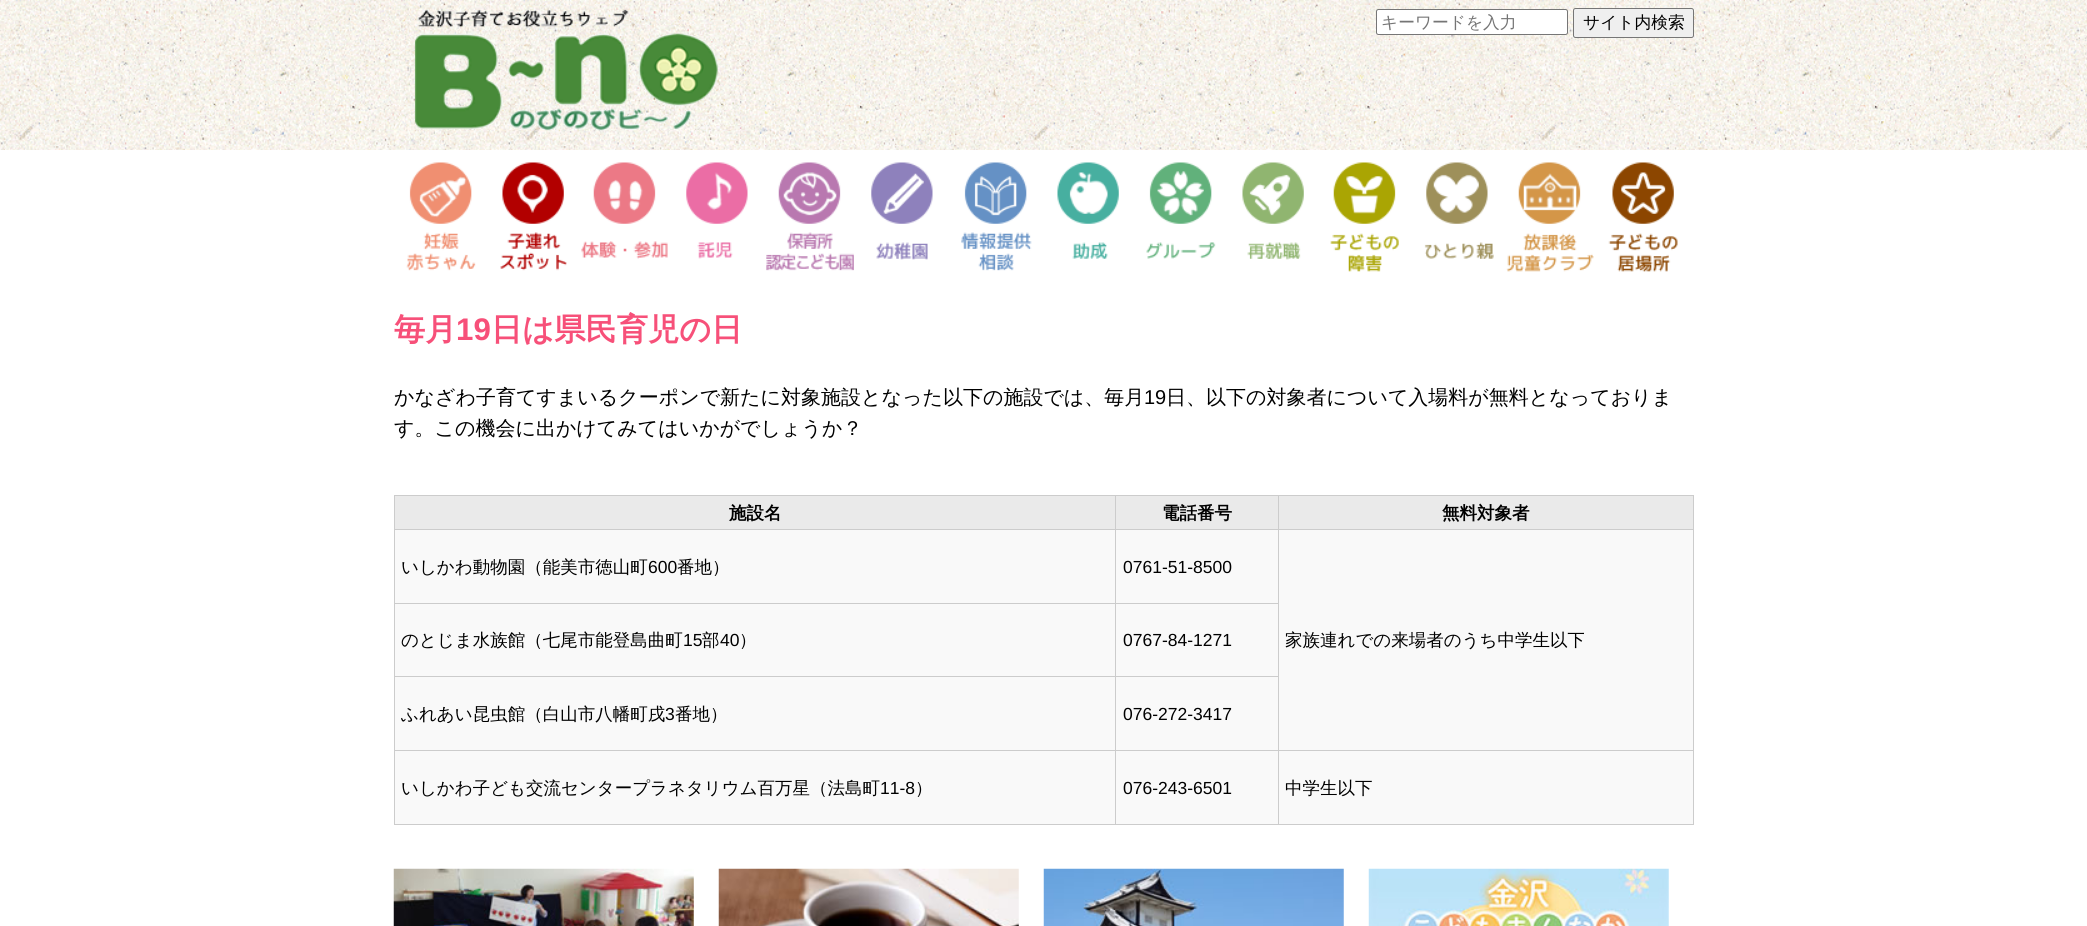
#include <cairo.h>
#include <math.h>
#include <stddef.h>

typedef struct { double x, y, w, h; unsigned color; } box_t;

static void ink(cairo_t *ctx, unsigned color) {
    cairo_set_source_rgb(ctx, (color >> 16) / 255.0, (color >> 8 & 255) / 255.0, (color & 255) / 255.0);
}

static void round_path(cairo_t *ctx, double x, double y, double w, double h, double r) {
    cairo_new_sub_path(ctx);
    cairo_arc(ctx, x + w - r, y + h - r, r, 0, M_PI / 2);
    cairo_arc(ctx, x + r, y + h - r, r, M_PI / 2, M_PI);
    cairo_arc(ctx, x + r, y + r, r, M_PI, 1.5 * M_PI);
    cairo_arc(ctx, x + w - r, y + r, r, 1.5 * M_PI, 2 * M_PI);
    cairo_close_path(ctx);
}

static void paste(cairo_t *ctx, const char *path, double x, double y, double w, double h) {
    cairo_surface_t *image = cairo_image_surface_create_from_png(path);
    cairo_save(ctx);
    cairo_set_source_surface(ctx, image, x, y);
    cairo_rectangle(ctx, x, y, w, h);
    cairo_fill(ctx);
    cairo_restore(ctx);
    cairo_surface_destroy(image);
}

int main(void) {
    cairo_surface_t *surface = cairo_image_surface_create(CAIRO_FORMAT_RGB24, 2087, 926);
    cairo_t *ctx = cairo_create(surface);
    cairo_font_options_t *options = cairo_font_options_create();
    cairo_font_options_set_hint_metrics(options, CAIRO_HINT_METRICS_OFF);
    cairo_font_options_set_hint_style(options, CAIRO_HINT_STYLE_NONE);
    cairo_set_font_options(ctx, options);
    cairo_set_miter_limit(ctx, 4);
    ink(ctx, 0xFFFFFF);
    cairo_paint(ctx);
    paste(ctx, "media/1.png", 0, 0, 2087, 150);
    paste(ctx, "media/2.png", 414, 9, 304, 122);
    ink(ctx, 0xFFFFFF);
    round_path(ctx, 1376.5, 9.5, 191, 25, 2);
    cairo_fill_preserve(ctx);
    ink(ctx, 0x767676);
    cairo_set_line_width(ctx, 1);
    cairo_stroke(ctx);
    cairo_select_font_face(ctx, "WenQuanYi Zen Hei Medium", CAIRO_FONT_SLANT_NORMAL, CAIRO_FONT_WEIGHT_NORMAL);
    cairo_set_font_size(ctx, 16.75);
    ink(ctx, 0x757575);
    cairo_move_to(ctx, 1381, 28);
    cairo_show_text(ctx, "キーワードを入力");
    ink(ctx, 0xEFEFEF);
    round_path(ctx, 1573.5, 8.5, 120, 29, 2);
    cairo_fill_preserve(ctx);
    ink(ctx, 0x767676);
    cairo_stroke(ctx);
    ink(ctx, 0x000000);
    cairo_move_to(ctx, 1583, 28);
    cairo_show_text(ctx, "サイト内検索");
    paste(ctx, "media/3.png", 406, 162, 70, 109);
    paste(ctx, "media/4.png", 500, 162, 67, 109);
    paste(ctx, "media/5.png", 581, 162, 87, 97);
    paste(ctx, "media/6.png", 686, 162, 62, 97);
    paste(ctx, "media/7.png", 766, 162, 88, 109);
    paste(ctx, "media/8.png", 871, 162, 62, 98);
    paste(ctx, "media/9.png", 961, 162, 71, 109);
    paste(ctx, "media/10.png", 1057, 162, 62, 97);
    paste(ctx, "media/11.png", 1146, 162, 70, 97);
    paste(ctx, "media/12.png", 1242, 162, 62, 98);
    paste(ctx, "media/13.png", 1330, 162, 69, 110);
    paste(ctx, "media/14.png", 1424, 162, 70, 97);
    paste(ctx, "media/15.png", 1506, 162, 88, 110);
    paste(ctx, "media/16.png", 1608, 162, 70, 110);
    cairo_select_font_face(ctx, "WenQuanYi Zen Hei", CAIRO_FONT_SLANT_NORMAL, CAIRO_FONT_WEIGHT_BOLD);
    cairo_set_font_size(ctx, 31.25);
    ink(ctx, 0xF75079);
    cairo_move_to(ctx, 394, 340);
    cairo_show_text(ctx, "毎月");
    cairo_select_font_face(ctx, "Liberation Sans", CAIRO_FONT_SLANT_NORMAL, CAIRO_FONT_WEIGHT_BOLD);
    cairo_move_to(ctx, 456, 340);
    cairo_show_text(ctx, "19");
    cairo_select_font_face(ctx, "WenQuanYi Zen Hei", CAIRO_FONT_SLANT_NORMAL, CAIRO_FONT_WEIGHT_BOLD);
    cairo_move_to(ctx, 491, 340);
    cairo_show_text(ctx, "日は県民育児の日");
    cairo_select_font_face(ctx, "WenQuanYi Zen Hei Medium", CAIRO_FONT_SLANT_NORMAL, CAIRO_FONT_WEIGHT_NORMAL);
    cairo_set_font_size(ctx, 20);
    ink(ctx, 0x000000);
    cairo_move_to(ctx, 394, 404);
    cairo_show_text(ctx, "かなざわ子育てすまいるクーポンで新たに対象施設となった以下の施設では、毎月");
    cairo_select_font_face(ctx, "Liberation Sans", CAIRO_FONT_SLANT_NORMAL, CAIRO_FONT_WEIGHT_NORMAL);
    cairo_move_to(ctx, 1144, 404);
    cairo_show_text(ctx, "19");
    cairo_select_font_face(ctx, "WenQuanYi Zen Hei Medium", CAIRO_FONT_SLANT_NORMAL, CAIRO_FONT_WEIGHT_NORMAL);
    cairo_move_to(ctx, 1166, 404);
    cairo_show_text(ctx, "日、以下の対象者について入場料が無料となっておりま");
    cairo_move_to(ctx, 394, 435);
    cairo_show_text(ctx, "す。この機会に出かけてみてはいかがでしょうか？");
    {
        static const box_t items[] = {
            {395, 496, 720, 33, 0xEAEAEA},
            {1278, 495, 416, 1, 0xCCCCCC},
            {1278, 529, 416, 1, 0xCCCCCC},
            {1115, 603, 164, 1, 0xCCCCCC},
            {1116, 604, 162, 146, 0xF9F9F9},
            {1115, 676, 164, 1, 0xCCCCCC},
            {1278, 750, 416, 1, 0xCCCCCC},
            {1693, 750, 1, 75, 0xCCCCCC},
            {1278, 824, 416, 1, 0xCCCCCC},
            {1278, 750, 1, 75, 0xCCCCCC},
            {1115, 750, 164, 1, 0xCCCCCC},
            {1278, 529, 1, 222, 0xCCCCCC},
            {1115, 529, 164, 1, 0xCCCCCC},
            {1278, 495, 1, 35, 0xCCCCCC},
            {1115, 495, 164, 1, 0xCCCCCC},
            {395, 604, 720, 146, 0xF9F9F9},
            {1115, 824, 164, 1, 0xCCCCCC},
            {1115, 750, 1, 75, 0xCCCCCC},
            {394, 750, 722, 1, 0xCCCCCC},
            {1115, 676, 1, 75, 0xCCCCCC},
            {394, 676, 722, 1, 0xCCCCCC},
            {1115, 603, 1, 75, 0xCCCCCC},
            {394, 603, 722, 1, 0xCCCCCC},
            {1115, 529, 1, 75, 0xCCCCCC},
            {394, 529, 722, 1, 0xCCCCCC},
            {1115, 495, 1, 35, 0xCCCCCC},
            {394, 495, 722, 1, 0xCCCCCC},
            {394, 824, 722, 1, 0xCCCCCC},
            {394, 750, 1, 75, 0xCCCCCC},
            {394, 676, 1, 75, 0xCCCCCC},
            {394, 603, 1, 75, 0xCCCCCC},
            {394, 529, 1, 75, 0xCCCCCC},
            {394, 495, 1, 35, 0xCCCCCC},
        };
        for (size_t i = 0; i < sizeof items / sizeof *items; i++) {
            ink(ctx, items[i].color);
            cairo_rectangle(ctx, items[i].x, items[i].y, items[i].w, items[i].h);
            cairo_fill(ctx);
        }
    }
    cairo_select_font_face(ctx, "WenQuanYi Zen Hei", CAIRO_FONT_SLANT_NORMAL, CAIRO_FONT_WEIGHT_BOLD);
    cairo_set_font_size(ctx, 17.5);
    ink(ctx, 0x000000);
    cairo_move_to(ctx, 729, 519);
    cairo_show_text(ctx, "施設名");
    ink(ctx, 0xEAEAEA);
    cairo_rectangle(ctx, 1116, 496, 162, 33);
    cairo_fill(ctx);
    ink(ctx, 0x000000);
    cairo_move_to(ctx, 1162, 519);
    cairo_show_text(ctx, "電話番号");
    {
        static const box_t items[] = {
            {1279, 496, 414, 33, 0xEAEAEA},
            {1693, 529, 1, 222, 0xCCCCCC},
            {1693, 495, 1, 35, 0xCCCCCC},
        };
        for (size_t i = 0; i < sizeof items / sizeof *items; i++) {
            ink(ctx, items[i].color);
            cairo_rectangle(ctx, items[i].x, items[i].y, items[i].w, items[i].h);
            cairo_fill(ctx);
        }
    }
    ink(ctx, 0x000000);
    cairo_move_to(ctx, 1442, 519);
    cairo_show_text(ctx, "無料対象者");
    ink(ctx, 0xF9F9F9);
    cairo_rectangle(ctx, 395, 530, 720, 73);
    cairo_fill(ctx);
    cairo_select_font_face(ctx, "WenQuanYi Zen Hei Medium", CAIRO_FONT_SLANT_NORMAL, CAIRO_FONT_WEIGHT_NORMAL);
    ink(ctx, 0x000000);
    cairo_move_to(ctx, 401, 573);
    cairo_show_text(ctx, "いしかわ動物園（能美市徳山町");
    cairo_select_font_face(ctx, "Liberation Sans", CAIRO_FONT_SLANT_NORMAL, CAIRO_FONT_WEIGHT_NORMAL);
    cairo_move_to(ctx, 648, 573);
    cairo_show_text(ctx, "600");
    cairo_select_font_face(ctx, "WenQuanYi Zen Hei Medium", CAIRO_FONT_SLANT_NORMAL, CAIRO_FONT_WEIGHT_NORMAL);
    cairo_move_to(ctx, 677, 573);
    cairo_show_text(ctx, "番地）");
    ink(ctx, 0xF9F9F9);
    cairo_rectangle(ctx, 1116, 530, 162, 73);
    cairo_fill(ctx);
    cairo_select_font_face(ctx, "Liberation Sans", CAIRO_FONT_SLANT_NORMAL, CAIRO_FONT_WEIGHT_NORMAL);
    ink(ctx, 0x000000);
    cairo_move_to(ctx, 1123, 573);
    cairo_show_text(ctx, "0761-51-8500");
    ink(ctx, 0xF9F9F9);
    cairo_rectangle(ctx, 1279, 530, 414, 220);
    cairo_fill(ctx);
    cairo_select_font_face(ctx, "WenQuanYi Zen Hei Medium", CAIRO_FONT_SLANT_NORMAL, CAIRO_FONT_WEIGHT_NORMAL);
    ink(ctx, 0x000000);
    cairo_move_to(ctx, 1285, 646);
    cairo_show_text(ctx, "家族連れでの来場者のうち中学生以下");
    cairo_move_to(ctx, 401, 646);
    cairo_show_text(ctx, "のとじま水族館（七尾市能登島曲町");
    cairo_select_font_face(ctx, "Liberation Sans", CAIRO_FONT_SLANT_NORMAL, CAIRO_FONT_WEIGHT_NORMAL);
    cairo_move_to(ctx, 683, 646);
    cairo_show_text(ctx, "15");
    cairo_select_font_face(ctx, "WenQuanYi Zen Hei Medium", CAIRO_FONT_SLANT_NORMAL, CAIRO_FONT_WEIGHT_NORMAL);
    cairo_move_to(ctx, 702, 646);
    cairo_show_text(ctx, "部");
    cairo_select_font_face(ctx, "Liberation Sans", CAIRO_FONT_SLANT_NORMAL, CAIRO_FONT_WEIGHT_NORMAL);
    cairo_move_to(ctx, 720, 646);
    cairo_show_text(ctx, "40");
    cairo_select_font_face(ctx, "WenQuanYi Zen Hei Medium", CAIRO_FONT_SLANT_NORMAL, CAIRO_FONT_WEIGHT_NORMAL);
    cairo_move_to(ctx, 739, 646);
    cairo_show_text(ctx, "）");
    cairo_select_font_face(ctx, "Liberation Sans", CAIRO_FONT_SLANT_NORMAL, CAIRO_FONT_WEIGHT_NORMAL);
    cairo_move_to(ctx, 1123, 646);
    cairo_show_text(ctx, "0767-84-1271");
    cairo_select_font_face(ctx, "WenQuanYi Zen Hei Medium", CAIRO_FONT_SLANT_NORMAL, CAIRO_FONT_WEIGHT_NORMAL);
    cairo_move_to(ctx, 401, 720);
    cairo_show_text(ctx, "ふれあい昆虫館（白山市八幡町戌");
    cairo_select_font_face(ctx, "Liberation Sans", CAIRO_FONT_SLANT_NORMAL, CAIRO_FONT_WEIGHT_NORMAL);
    cairo_move_to(ctx, 665, 720);
    cairo_show_text(ctx, "3");
    cairo_select_font_face(ctx, "WenQuanYi Zen Hei Medium", CAIRO_FONT_SLANT_NORMAL, CAIRO_FONT_WEIGHT_NORMAL);
    cairo_move_to(ctx, 675, 720);
    cairo_show_text(ctx, "番地）");
    cairo_select_font_face(ctx, "Liberation Sans", CAIRO_FONT_SLANT_NORMAL, CAIRO_FONT_WEIGHT_NORMAL);
    cairo_move_to(ctx, 1123, 720);
    cairo_show_text(ctx, "076-272-3417");
    ink(ctx, 0xF9F9F9);
    cairo_rectangle(ctx, 395, 751, 720, 73);
    cairo_fill(ctx);
    cairo_select_font_face(ctx, "WenQuanYi Zen Hei Medium", CAIRO_FONT_SLANT_NORMAL, CAIRO_FONT_WEIGHT_NORMAL);
    ink(ctx, 0x000000);
    cairo_move_to(ctx, 401, 794);
    cairo_show_text(ctx, "いしかわ子ども交流センタープラネタリウム百万星（法島町");
    cairo_select_font_face(ctx, "Liberation Sans", CAIRO_FONT_SLANT_NORMAL, CAIRO_FONT_WEIGHT_NORMAL);
    cairo_move_to(ctx, 880, 794);
    cairo_show_text(ctx, "11-8");
    cairo_select_font_face(ctx, "WenQuanYi Zen Hei Medium", CAIRO_FONT_SLANT_NORMAL, CAIRO_FONT_WEIGHT_NORMAL);
    cairo_move_to(ctx, 915, 794);
    cairo_show_text(ctx, "）");
    ink(ctx, 0xF9F9F9);
    cairo_rectangle(ctx, 1116, 751, 162, 73);
    cairo_fill(ctx);
    cairo_select_font_face(ctx, "Liberation Sans", CAIRO_FONT_SLANT_NORMAL, CAIRO_FONT_WEIGHT_NORMAL);
    ink(ctx, 0x000000);
    cairo_move_to(ctx, 1123, 794);
    cairo_show_text(ctx, "076-243-6501");
    ink(ctx, 0xF9F9F9);
    cairo_rectangle(ctx, 1279, 751, 414, 73);
    cairo_fill(ctx);
    cairo_select_font_face(ctx, "WenQuanYi Zen Hei Medium", CAIRO_FONT_SLANT_NORMAL, CAIRO_FONT_WEIGHT_NORMAL);
    ink(ctx, 0x000000);
    cairo_move_to(ctx, 1285, 794);
    cairo_show_text(ctx, "中学生以下");
    paste(ctx, "media/17.png", 393, 868, 301, 58);
    paste(ctx, "media/18.png", 718, 868, 301, 58);
    paste(ctx, "media/19.png", 1043, 868, 301, 58);
    paste(ctx, "media/20.png", 1368, 868, 301, 58);
    cairo_surface_write_to_png(surface, "image.png");
    cairo_font_options_destroy(options);
    cairo_destroy(ctx);
    cairo_surface_destroy(surface);
    return 0;
}
